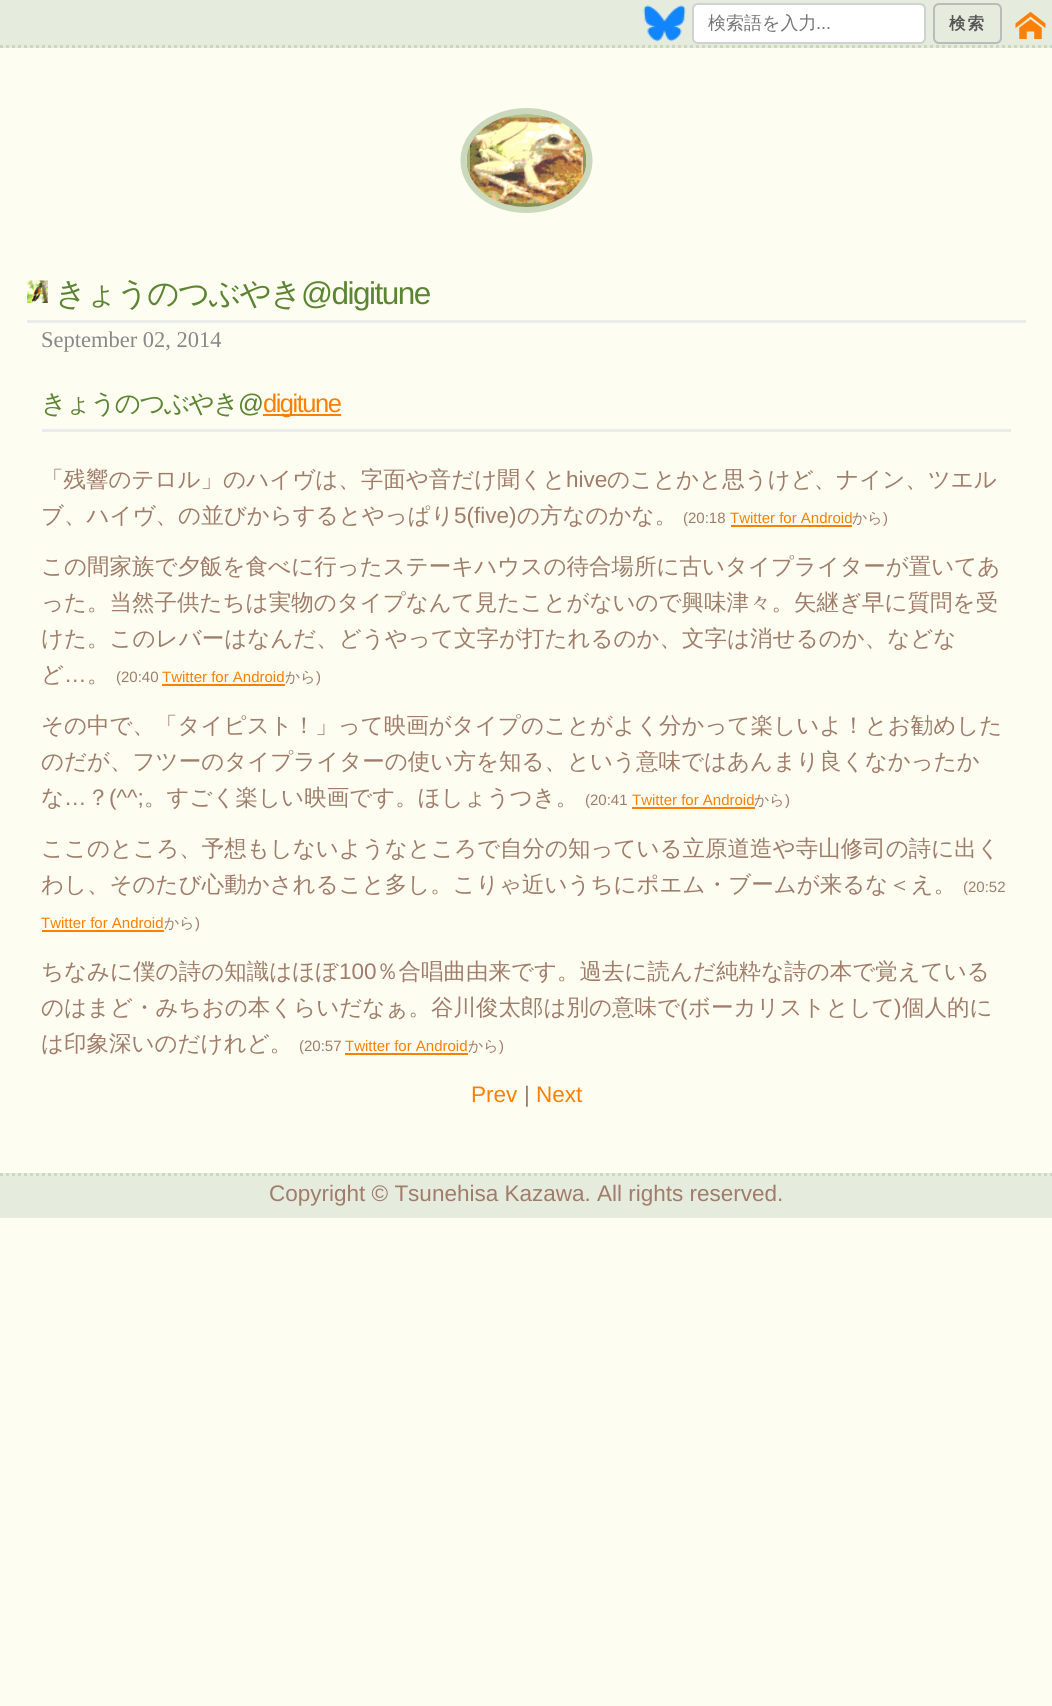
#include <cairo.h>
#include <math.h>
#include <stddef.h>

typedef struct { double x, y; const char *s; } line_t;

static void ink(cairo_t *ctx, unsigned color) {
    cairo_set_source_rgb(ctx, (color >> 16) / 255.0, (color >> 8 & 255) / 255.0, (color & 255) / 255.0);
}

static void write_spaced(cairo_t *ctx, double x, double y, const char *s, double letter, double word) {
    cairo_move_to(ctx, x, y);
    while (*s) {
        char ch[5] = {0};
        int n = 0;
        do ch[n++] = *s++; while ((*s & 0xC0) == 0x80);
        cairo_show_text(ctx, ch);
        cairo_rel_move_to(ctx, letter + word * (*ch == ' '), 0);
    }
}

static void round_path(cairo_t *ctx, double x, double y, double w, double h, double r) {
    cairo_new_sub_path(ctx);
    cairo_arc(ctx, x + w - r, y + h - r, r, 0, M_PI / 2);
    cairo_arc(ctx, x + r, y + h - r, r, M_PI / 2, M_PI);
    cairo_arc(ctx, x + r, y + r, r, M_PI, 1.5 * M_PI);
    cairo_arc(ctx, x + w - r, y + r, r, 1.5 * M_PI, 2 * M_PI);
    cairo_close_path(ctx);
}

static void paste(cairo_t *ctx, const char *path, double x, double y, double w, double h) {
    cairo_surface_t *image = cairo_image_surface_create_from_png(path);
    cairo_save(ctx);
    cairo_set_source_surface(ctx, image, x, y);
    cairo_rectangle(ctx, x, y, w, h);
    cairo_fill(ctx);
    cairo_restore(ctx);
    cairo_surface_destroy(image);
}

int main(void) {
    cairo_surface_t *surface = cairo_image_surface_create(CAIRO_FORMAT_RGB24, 1052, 1706);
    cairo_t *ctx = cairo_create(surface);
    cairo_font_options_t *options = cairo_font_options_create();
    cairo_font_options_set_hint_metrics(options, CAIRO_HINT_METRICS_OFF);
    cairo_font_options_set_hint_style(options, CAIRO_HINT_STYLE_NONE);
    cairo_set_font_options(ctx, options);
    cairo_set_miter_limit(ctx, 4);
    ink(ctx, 0xFDFDF1);
    cairo_paint(ctx);
    ink(ctx, 0xE5EBDD);
    cairo_rectangle(ctx, 0, 0, 1052, 48);
    cairo_fill(ctx);
    cairo_new_path(ctx);
    cairo_move_to(ctx, 0, 46.5);
    cairo_line_to(ctx, 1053, 46.5);
    ink(ctx, 0xCAD8BC);
    cairo_set_line_width(ctx, 3);
    cairo_set_dash(ctx, (double[]){3, 3}, 2, 0);
    cairo_stroke(ctx);
    paste(ctx, "media/1.png", 643, 5, 43, 37);
    ink(ctx, 0xFFFFFF);
    round_path(ctx, 693, 4, 232, 39, 5);
    cairo_fill_preserve(ctx);
    ink(ctx, 0xD1D1D1);
    cairo_set_line_width(ctx, 2);
    cairo_set_dash(ctx, NULL, 0, 0);
    cairo_stroke(ctx);
    cairo_select_font_face(ctx, "WenQuanYi Zen Hei Medium", CAIRO_FONT_SLANT_NORMAL, CAIRO_FONT_WEIGHT_NORMAL);
    cairo_set_font_size(ctx, 18);
    ink(ctx, 0x757575);
    cairo_move_to(ctx, 708, 29);
    cairo_show_text(ctx, "検索語を入力");
    cairo_select_font_face(ctx, "Liberation Sans", CAIRO_FONT_SLANT_NORMAL, CAIRO_FONT_WEIGHT_NORMAL);
    cairo_move_to(ctx, 816, 29);
    cairo_show_text(ctx, "...");
    round_path(ctx, 934, 4, 67, 39, 5);
    ink(ctx, 0xBBBBBB);
    cairo_stroke(ctx);
    cairo_select_font_face(ctx, "WenQuanYi Zen Hei", CAIRO_FONT_SLANT_NORMAL, CAIRO_FONT_WEIGHT_BOLD);
    cairo_set_font_size(ctx, 16.5);
    ink(ctx, 0x555555);
    write_spaced(ctx, 949, 29, "検索", 2, 0);
    paste(ctx, "media/2.png", 1015, 11, 31, 28);
    cairo_new_path(ctx);
    cairo_move_to(ctx, 526.5, 111);
    cairo_curve_to(ctx, 561.5, 111, 589.5, 133, 589.5, 160.5);
    cairo_curve_to(ctx, 589.5, 188, 561.5, 210, 526.5, 210);
    cairo_curve_to(ctx, 491.5, 210, 463.5, 188, 463.5, 160.5);
    cairo_curve_to(ctx, 463.5, 133, 491.5, 111, 526.5, 111);
    cairo_close_path(ctx);
    ink(ctx, 0xCAD8BC);
    cairo_set_line_width(ctx, 6);
    cairo_stroke(ctx);
    paste(ctx, "media/3.png", 466, 114, 121, 93);
    ink(ctx, 0xE9ECED);
    cairo_rectangle(ctx, 27, 320, 999, 3);
    cairo_fill(ctx);
    paste(ctx, "media/4.png", 27, 280, 21, 23);
    cairo_select_font_face(ctx, "WenQuanYi Zen Hei Medium", CAIRO_FONT_SLANT_NORMAL, CAIRO_FONT_WEIGHT_NORMAL);
    cairo_set_font_size(ctx, 31.5);
    ink(ctx, 0x5C8533);
    write_spaced(ctx, 55, 304, "きょうのつぶやき", -1.5, 0);
    cairo_select_font_face(ctx, "Liberation Sans", CAIRO_FONT_SLANT_NORMAL, CAIRO_FONT_WEIGHT_NORMAL);
    write_spaced(ctx, 301, 304, "@digitune", -1.5, 0);
    cairo_select_font_face(ctx, "Liberation Serif", CAIRO_FONT_SLANT_NORMAL, CAIRO_FONT_WEIGHT_NORMAL);
    cairo_set_font_size(ctx, 22.5);
    ink(ctx, 0x888888);
    cairo_move_to(ctx, 41, 347);
    cairo_show_text(ctx, "September 02, 2014");
    ink(ctx, 0xE9ECED);
    cairo_rectangle(ctx, 42, 429, 969, 3);
    cairo_fill(ctx);
    cairo_select_font_face(ctx, "WenQuanYi Zen Hei Medium", CAIRO_FONT_SLANT_NORMAL, CAIRO_FONT_WEIGHT_NORMAL);
    cairo_set_font_size(ctx, 25.5);
    ink(ctx, 0x5C8533);
    write_spaced(ctx, 41, 412, "きょうのつぶやき", -1.5, 0);
    cairo_select_font_face(ctx, "Liberation Sans", CAIRO_FONT_SLANT_NORMAL, CAIRO_FONT_WEIGHT_NORMAL);
    write_spaced(ctx, 238, 412, "@", -1.5, 0);
    ink(ctx, 0xFF8000);
    cairo_rectangle(ctx, 263, 414, 78, 2);
    cairo_fill(ctx);
    write_spaced(ctx, 263, 412, "digitune", -1.5, 0);
    cairo_select_font_face(ctx, "WenQuanYi Zen Hei Medium", CAIRO_FONT_SLANT_NORMAL, CAIRO_FONT_WEIGHT_NORMAL);
    cairo_set_font_size(ctx, 22.5);
    ink(ctx, 0xA07C69);
    cairo_move_to(ctx, 41, 487);
    cairo_show_text(ctx, "「残響のテロル」のハイヴは、字面や音だけ聞くと");
    cairo_select_font_face(ctx, "Liberation Sans", CAIRO_FONT_SLANT_NORMAL, CAIRO_FONT_WEIGHT_NORMAL);
    cairo_move_to(ctx, 566, 487);
    cairo_show_text(ctx, "hive");
    cairo_select_font_face(ctx, "WenQuanYi Zen Hei Medium", CAIRO_FONT_SLANT_NORMAL, CAIRO_FONT_WEIGHT_NORMAL);
    cairo_move_to(ctx, 607, 487);
    cairo_show_text(ctx, "のことかと思うけど、ナイン、ツエル");
    cairo_move_to(ctx, 41, 523);
    cairo_show_text(ctx, "ブ、ハイヴ、の並びからするとやっぱり");
    cairo_select_font_face(ctx, "Liberation Sans", CAIRO_FONT_SLANT_NORMAL, CAIRO_FONT_WEIGHT_NORMAL);
    cairo_move_to(ctx, 454, 523);
    cairo_show_text(ctx, "5(five)");
    cairo_select_font_face(ctx, "WenQuanYi Zen Hei Medium", CAIRO_FONT_SLANT_NORMAL, CAIRO_FONT_WEIGHT_NORMAL);
    cairo_move_to(ctx, 517, 523);
    cairo_show_text(ctx, "の方なのかな。");
    cairo_select_font_face(ctx, "Liberation Sans", CAIRO_FONT_SLANT_NORMAL, CAIRO_FONT_WEIGHT_NORMAL);
    cairo_set_font_size(ctx, 15);
    cairo_move_to(ctx, 683, 523);
    cairo_show_text(ctx, "(20:18");
    ink(ctx, 0xFF8000);
    cairo_move_to(ctx, 730, 523);
    cairo_show_text(ctx, "Twitter for Android");
    cairo_select_font_face(ctx, "WenQuanYi Zen Hei Medium", CAIRO_FONT_SLANT_NORMAL, CAIRO_FONT_WEIGHT_NORMAL);
    ink(ctx, 0xA07C69);
    cairo_move_to(ctx, 852, 523);
    cairo_show_text(ctx, "から");
    ink(ctx, 0xFF8000);
    cairo_rectangle(ctx, 731, 525, 121, 2);
    cairo_fill(ctx);
    cairo_select_font_face(ctx, "Liberation Sans", CAIRO_FONT_SLANT_NORMAL, CAIRO_FONT_WEIGHT_NORMAL);
    ink(ctx, 0xA07C69);
    cairo_move_to(ctx, 883, 523);
    cairo_show_text(ctx, ")");
    cairo_select_font_face(ctx, "WenQuanYi Zen Hei Medium", CAIRO_FONT_SLANT_NORMAL, CAIRO_FONT_WEIGHT_NORMAL);
    cairo_set_font_size(ctx, 22.5);
    {
        static const line_t items[] = {
            {41, 574, "この間家族で夕飯を食べに行ったステーキハウスの待合場所に古いタイプライターが置いてあ"},
            {41, 610, "った。当然子供たちは実物のタイプなんて見たことがないので興味津々。矢継ぎ早に質問を受"},
            {41, 646, "けた。このレバーはなんだ、どうやって文字が打たれるのか、文字は消せるのか、などな"},
            {41, 682, "ど"},
        };
        for (size_t i = 0; i < sizeof items / sizeof *items; i++) {
            cairo_move_to(ctx, items[i].x, items[i].y);
            cairo_show_text(ctx, items[i].s);
        }
    }
    cairo_select_font_face(ctx, "Liberation Sans", CAIRO_FONT_SLANT_NORMAL, CAIRO_FONT_WEIGHT_NORMAL);
    cairo_move_to(ctx, 64, 682);
    cairo_show_text(ctx, "…");
    cairo_select_font_face(ctx, "WenQuanYi Zen Hei Medium", CAIRO_FONT_SLANT_NORMAL, CAIRO_FONT_WEIGHT_NORMAL);
    cairo_move_to(ctx, 87, 682);
    cairo_show_text(ctx, "。");
    cairo_select_font_face(ctx, "Liberation Sans", CAIRO_FONT_SLANT_NORMAL, CAIRO_FONT_WEIGHT_NORMAL);
    cairo_set_font_size(ctx, 15);
    cairo_move_to(ctx, 116, 682);
    cairo_show_text(ctx, "(20:40");
    ink(ctx, 0xFF8000);
    cairo_move_to(ctx, 162, 682);
    cairo_show_text(ctx, "Twitter for Android");
    cairo_select_font_face(ctx, "WenQuanYi Zen Hei Medium", CAIRO_FONT_SLANT_NORMAL, CAIRO_FONT_WEIGHT_NORMAL);
    ink(ctx, 0xA07C69);
    cairo_move_to(ctx, 285, 682);
    cairo_show_text(ctx, "から");
    ink(ctx, 0xFF8000);
    cairo_rectangle(ctx, 162, 684, 123, 2);
    cairo_fill(ctx);
    cairo_select_font_face(ctx, "Liberation Sans", CAIRO_FONT_SLANT_NORMAL, CAIRO_FONT_WEIGHT_NORMAL);
    ink(ctx, 0xA07C69);
    cairo_move_to(ctx, 316, 682);
    cairo_show_text(ctx, ")");
    cairo_select_font_face(ctx, "WenQuanYi Zen Hei Medium", CAIRO_FONT_SLANT_NORMAL, CAIRO_FONT_WEIGHT_NORMAL);
    cairo_set_font_size(ctx, 22.5);
    {
        static const line_t items[] = {
            {41, 733, "その中で、「タイピスト！」って映画がタイプのことがよく分かって楽しいよ！とお勧めした"},
            {41, 769, "のだが、フツーのタイプライターの使い方を知る、という意味ではあんまり良くなかったか"},
            {41, 805, "な"},
        };
        for (size_t i = 0; i < sizeof items / sizeof *items; i++) {
            cairo_move_to(ctx, items[i].x, items[i].y);
            cairo_show_text(ctx, items[i].s);
        }
    }
    cairo_select_font_face(ctx, "Liberation Sans", CAIRO_FONT_SLANT_NORMAL, CAIRO_FONT_WEIGHT_NORMAL);
    cairo_move_to(ctx, 64, 805);
    cairo_show_text(ctx, "…");
    cairo_select_font_face(ctx, "WenQuanYi Zen Hei Medium", CAIRO_FONT_SLANT_NORMAL, CAIRO_FONT_WEIGHT_NORMAL);
    cairo_move_to(ctx, 87, 805);
    cairo_show_text(ctx, "？");
    cairo_select_font_face(ctx, "Liberation Sans", CAIRO_FONT_SLANT_NORMAL, CAIRO_FONT_WEIGHT_NORMAL);
    cairo_move_to(ctx, 109, 805);
    cairo_show_text(ctx, "(^^;");
    cairo_select_font_face(ctx, "WenQuanYi Zen Hei Medium", CAIRO_FONT_SLANT_NORMAL, CAIRO_FONT_WEIGHT_NORMAL);
    cairo_move_to(ctx, 144, 805);
    cairo_show_text(ctx, "。すごく楽しい映画です。ほしょうつき。");
    cairo_select_font_face(ctx, "Liberation Sans", CAIRO_FONT_SLANT_NORMAL, CAIRO_FONT_WEIGHT_NORMAL);
    cairo_set_font_size(ctx, 15);
    cairo_move_to(ctx, 585, 805);
    cairo_show_text(ctx, "(20:41");
    ink(ctx, 0xFF8000);
    cairo_move_to(ctx, 632, 805);
    cairo_show_text(ctx, "Twitter for Android");
    cairo_rectangle(ctx, 632, 807, 123, 2);
    cairo_fill(ctx);
    cairo_select_font_face(ctx, "WenQuanYi Zen Hei Medium", CAIRO_FONT_SLANT_NORMAL, CAIRO_FONT_WEIGHT_NORMAL);
    ink(ctx, 0xA07C69);
    cairo_move_to(ctx, 754, 805);
    cairo_show_text(ctx, "から");
    cairo_select_font_face(ctx, "Liberation Sans", CAIRO_FONT_SLANT_NORMAL, CAIRO_FONT_WEIGHT_NORMAL);
    cairo_move_to(ctx, 785, 805);
    cairo_show_text(ctx, ")");
    cairo_select_font_face(ctx, "WenQuanYi Zen Hei Medium", CAIRO_FONT_SLANT_NORMAL, CAIRO_FONT_WEIGHT_NORMAL);
    cairo_set_font_size(ctx, 22.5);
    cairo_move_to(ctx, 41, 856);
    cairo_show_text(ctx, "ここのところ、予想もしないようなところで自分の知っている立原道造や寺山修司の詩に出く");
    cairo_move_to(ctx, 41, 892);
    cairo_show_text(ctx, "わし、そのたび心動かされること多し。こりゃ近いうちにポエム・ブームが来るな＜え。");
    cairo_select_font_face(ctx, "Liberation Sans", CAIRO_FONT_SLANT_NORMAL, CAIRO_FONT_WEIGHT_NORMAL);
    cairo_set_font_size(ctx, 15);
    cairo_move_to(ctx, 963, 892);
    cairo_show_text(ctx, "(20:52");
    ink(ctx, 0xFF8000);
    cairo_move_to(ctx, 41, 928);
    cairo_show_text(ctx, "Twitter for Android");
    cairo_select_font_face(ctx, "WenQuanYi Zen Hei Medium", CAIRO_FONT_SLANT_NORMAL, CAIRO_FONT_WEIGHT_NORMAL);
    ink(ctx, 0xA07C69);
    cairo_move_to(ctx, 164, 928);
    cairo_show_text(ctx, "から");
    ink(ctx, 0xFF8000);
    cairo_rectangle(ctx, 42, 930, 122, 2);
    cairo_fill(ctx);
    cairo_select_font_face(ctx, "Liberation Sans", CAIRO_FONT_SLANT_NORMAL, CAIRO_FONT_WEIGHT_NORMAL);
    ink(ctx, 0xA07C69);
    cairo_move_to(ctx, 195, 928);
    cairo_show_text(ctx, ")");
    cairo_select_font_face(ctx, "WenQuanYi Zen Hei Medium", CAIRO_FONT_SLANT_NORMAL, CAIRO_FONT_WEIGHT_NORMAL);
    cairo_set_font_size(ctx, 22.5);
    cairo_move_to(ctx, 41, 979);
    cairo_show_text(ctx, "ちなみに僕の詩の知識はほぼ");
    cairo_select_font_face(ctx, "Liberation Sans", CAIRO_FONT_SLANT_NORMAL, CAIRO_FONT_WEIGHT_NORMAL);
    cairo_move_to(ctx, 339, 979);
    cairo_show_text(ctx, "100");
    cairo_select_font_face(ctx, "WenQuanYi Zen Hei Medium", CAIRO_FONT_SLANT_NORMAL, CAIRO_FONT_WEIGHT_NORMAL);
    cairo_move_to(ctx, 376, 979);
    cairo_show_text(ctx, "％合唱曲由来です。過去に読んだ純粋な詩の本で覚えている");
    cairo_move_to(ctx, 41, 1015);
    cairo_show_text(ctx, "のはまど・みちおの本くらいだなぁ。谷川俊太郎は別の意味で");
    cairo_select_font_face(ctx, "Liberation Sans", CAIRO_FONT_SLANT_NORMAL, CAIRO_FONT_WEIGHT_NORMAL);
    cairo_move_to(ctx, 680, 1015);
    cairo_show_text(ctx, "(");
    cairo_select_font_face(ctx, "WenQuanYi Zen Hei Medium", CAIRO_FONT_SLANT_NORMAL, CAIRO_FONT_WEIGHT_NORMAL);
    cairo_move_to(ctx, 688, 1015);
    cairo_show_text(ctx, "ボーカリストとして");
    cairo_select_font_face(ctx, "Liberation Sans", CAIRO_FONT_SLANT_NORMAL, CAIRO_FONT_WEIGHT_NORMAL);
    cairo_move_to(ctx, 894, 1015);
    cairo_show_text(ctx, ")");
    cairo_select_font_face(ctx, "WenQuanYi Zen Hei Medium", CAIRO_FONT_SLANT_NORMAL, CAIRO_FONT_WEIGHT_NORMAL);
    cairo_move_to(ctx, 902, 1015);
    cairo_show_text(ctx, "個人的に");
    cairo_move_to(ctx, 41, 1051);
    cairo_show_text(ctx, "は印象深いのだけれど。");
    cairo_select_font_face(ctx, "Liberation Sans", CAIRO_FONT_SLANT_NORMAL, CAIRO_FONT_WEIGHT_NORMAL);
    cairo_set_font_size(ctx, 15);
    cairo_move_to(ctx, 299, 1051);
    cairo_show_text(ctx, "(20:57");
    ink(ctx, 0xFF8000);
    cairo_move_to(ctx, 345, 1051);
    cairo_show_text(ctx, "Twitter for Android");
    cairo_select_font_face(ctx, "WenQuanYi Zen Hei Medium", CAIRO_FONT_SLANT_NORMAL, CAIRO_FONT_WEIGHT_NORMAL);
    ink(ctx, 0xA07C69);
    cairo_move_to(ctx, 468, 1051);
    cairo_show_text(ctx, "から");
    ink(ctx, 0xFF8000);
    cairo_rectangle(ctx, 345, 1053, 123, 2);
    cairo_fill(ctx);
    cairo_select_font_face(ctx, "Liberation Sans", CAIRO_FONT_SLANT_NORMAL, CAIRO_FONT_WEIGHT_NORMAL);
    ink(ctx, 0xA07C69);
    cairo_move_to(ctx, 499, 1051);
    cairo_show_text(ctx, ")");
    cairo_set_font_size(ctx, 22.5);
    ink(ctx, 0xFF8000);
    cairo_move_to(ctx, 471, 1102);
    cairo_show_text(ctx, "Prev");
    ink(ctx, 0xA07C69);
    cairo_move_to(ctx, 524, 1102);
    cairo_show_text(ctx, "|");
    ink(ctx, 0xFF8000);
    cairo_move_to(ctx, 536, 1102);
    cairo_show_text(ctx, "Next");
    ink(ctx, 0xE5EBDD);
    cairo_rectangle(ctx, 0, 1173, 1052, 45);
    cairo_fill(ctx);
    cairo_new_path(ctx);
    cairo_move_to(ctx, 0, 1174.5);
    cairo_line_to(ctx, 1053, 1174.5);
    ink(ctx, 0xCAD8BC);
    cairo_set_line_width(ctx, 3);
    cairo_set_dash(ctx, (double[]){3, 3}, 2, 0);
    cairo_stroke(ctx);
    ink(ctx, 0xA07C69);
    cairo_move_to(ctx, 269, 1201);
    cairo_show_text(ctx, "Copyright © Tsunehisa Kazawa. All rights reserved.");
    cairo_surface_write_to_png(surface, "image.png");
    cairo_font_options_destroy(options);
    cairo_destroy(ctx);
    cairo_surface_destroy(surface);
    return 0;
}
